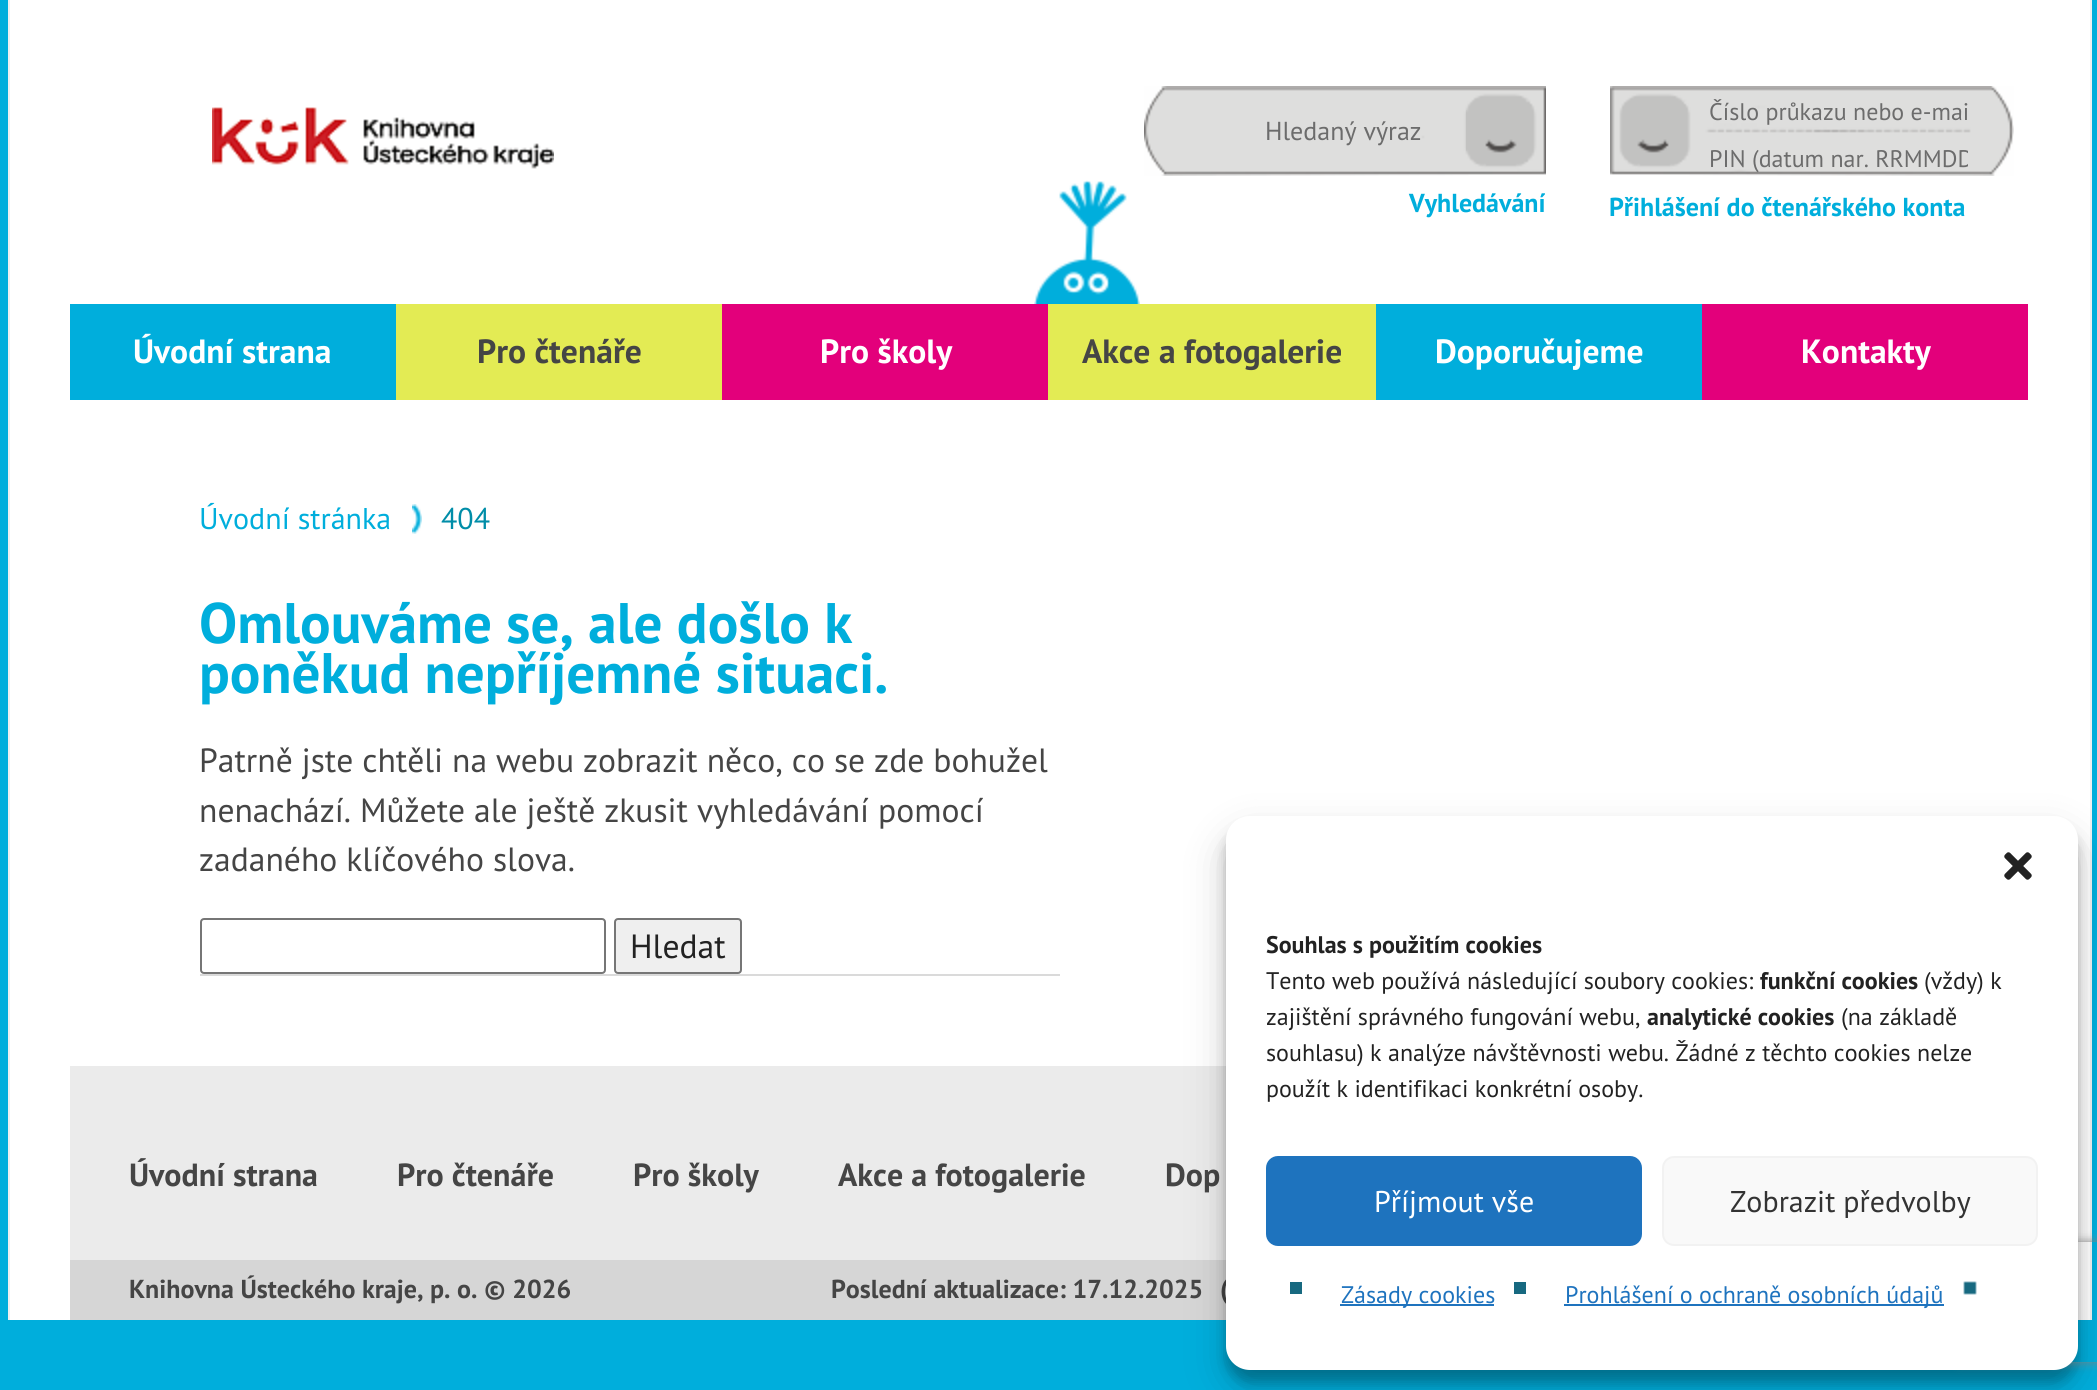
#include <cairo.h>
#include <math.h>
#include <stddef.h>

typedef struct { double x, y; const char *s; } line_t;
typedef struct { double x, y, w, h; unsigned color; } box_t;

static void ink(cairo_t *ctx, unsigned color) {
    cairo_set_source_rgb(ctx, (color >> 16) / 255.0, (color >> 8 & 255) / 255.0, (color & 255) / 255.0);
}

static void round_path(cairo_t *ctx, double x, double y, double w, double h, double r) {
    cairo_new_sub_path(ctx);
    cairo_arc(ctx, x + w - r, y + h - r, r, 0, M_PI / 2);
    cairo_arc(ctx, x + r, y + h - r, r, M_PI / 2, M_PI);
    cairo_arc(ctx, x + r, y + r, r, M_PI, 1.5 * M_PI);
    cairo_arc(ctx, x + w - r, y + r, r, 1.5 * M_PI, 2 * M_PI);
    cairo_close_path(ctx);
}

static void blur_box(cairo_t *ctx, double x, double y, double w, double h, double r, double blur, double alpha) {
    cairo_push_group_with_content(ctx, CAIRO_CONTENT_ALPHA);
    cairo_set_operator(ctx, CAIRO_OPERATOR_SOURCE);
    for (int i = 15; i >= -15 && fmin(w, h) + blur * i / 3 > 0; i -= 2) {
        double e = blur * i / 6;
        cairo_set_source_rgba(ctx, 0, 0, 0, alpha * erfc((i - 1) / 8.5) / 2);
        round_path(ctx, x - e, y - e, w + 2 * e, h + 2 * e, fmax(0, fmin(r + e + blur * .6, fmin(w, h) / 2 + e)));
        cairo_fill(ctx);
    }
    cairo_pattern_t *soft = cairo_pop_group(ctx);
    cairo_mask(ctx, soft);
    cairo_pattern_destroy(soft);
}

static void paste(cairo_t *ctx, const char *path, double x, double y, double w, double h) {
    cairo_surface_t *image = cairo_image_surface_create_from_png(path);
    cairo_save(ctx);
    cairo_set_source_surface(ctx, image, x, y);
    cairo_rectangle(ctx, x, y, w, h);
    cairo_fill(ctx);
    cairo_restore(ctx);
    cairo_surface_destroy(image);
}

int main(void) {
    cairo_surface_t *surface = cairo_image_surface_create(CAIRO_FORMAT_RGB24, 2097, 1390);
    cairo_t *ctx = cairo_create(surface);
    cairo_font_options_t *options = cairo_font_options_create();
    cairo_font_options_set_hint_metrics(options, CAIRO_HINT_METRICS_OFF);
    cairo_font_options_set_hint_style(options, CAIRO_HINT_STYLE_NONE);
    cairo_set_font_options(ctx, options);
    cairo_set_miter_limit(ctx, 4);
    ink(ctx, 0x00AEDC);
    cairo_paint(ctx);
    {
        static const box_t items[] = {
            {10, 0, 2080, 1320, 0xFFFFFF},
            {2090, 0, 2, 1320, 0xF0F0F0},
            {8, 0, 2, 1320, 0xF0F0F0},
        };
        for (size_t i = 0; i < sizeof items / sizeof *items; i++) {
            ink(ctx, items[i].color);
            cairo_rectangle(ctx, items[i].x, items[i].y, items[i].w, items[i].h);
            cairo_fill(ctx);
        }
    }
    paste(ctx, "media/1.png", 1034, 180, 106, 124);
    paste(ctx, "media/2.png", 212, 107, 342, 62);
    paste(ctx, "media/3.png", 1144, 86, 402, 90);
    cairo_select_font_face(ctx, "PT Sans", CAIRO_FONT_SLANT_NORMAL, CAIRO_FONT_WEIGHT_NORMAL);
    cairo_set_font_size(ctx, 26);
    ink(ctx, 0x6C6C6C);
    cairo_move_to(ctx, 1265, 140);
    cairo_show_text(ctx, "Hledaný výraz");
    paste(ctx, "media/4.png", 1466, 110, 1, 41);
    cairo_select_font_face(ctx, "PT Sans", CAIRO_FONT_SLANT_NORMAL, CAIRO_FONT_WEIGHT_BOLD);
    ink(ctx, 0x00AEDC);
    cairo_move_to(ctx, 1409, 212);
    cairo_show_text(ctx, "Vyhledávání");
    paste(ctx, "media/5.png", 1610, 86, 404, 90);
    cairo_select_font_face(ctx, "PT Sans", CAIRO_FONT_SLANT_NORMAL, CAIRO_FONT_WEIGHT_NORMAL);
    cairo_set_font_size(ctx, 24);
    ink(ctx, 0x6C6C6C);
    cairo_move_to(ctx, 1709, 120);
    cairo_show_text(ctx, "Číslo průkazu nebo e-mai");
    cairo_save(ctx);
    cairo_rectangle(ctx, 1710, 144, 258, 30);
    cairo_clip(ctx);
    cairo_move_to(ctx, 1709, 167);
    cairo_show_text(ctx, "PIN (datum nar. RRMMDD");
    cairo_restore(ctx);
    cairo_select_font_face(ctx, "PT Sans", CAIRO_FONT_SLANT_NORMAL, CAIRO_FONT_WEIGHT_BOLD);
    cairo_set_font_size(ctx, 26);
    ink(ctx, 0x00AEDC);
    cairo_move_to(ctx, 1609, 216);
    cairo_show_text(ctx, "Přihlášení do čtenářského konta");
    cairo_rectangle(ctx, 70, 304, 326, 96);
    cairo_fill(ctx);
    cairo_set_font_size(ctx, 33.6);
    ink(ctx, 0xFFFFFF);
    cairo_move_to(ctx, 133, 363);
    cairo_show_text(ctx, "Úvodní strana");
    ink(ctx, 0xE3EB54);
    cairo_rectangle(ctx, 396, 304, 326, 96);
    cairo_fill(ctx);
    ink(ctx, 0x454545);
    cairo_move_to(ctx, 477, 363);
    cairo_show_text(ctx, "Pro čtenáře");
    ink(ctx, 0xE3007B);
    cairo_rectangle(ctx, 722, 304, 326, 96);
    cairo_fill(ctx);
    ink(ctx, 0xFFFFFF);
    cairo_move_to(ctx, 820, 363);
    cairo_show_text(ctx, "Pro školy");
    ink(ctx, 0xE3EB54);
    cairo_rectangle(ctx, 1048, 304, 328, 96);
    cairo_fill(ctx);
    ink(ctx, 0x454545);
    cairo_move_to(ctx, 1082, 363);
    cairo_show_text(ctx, "Akce a fotogalerie");
    ink(ctx, 0x00AEDC);
    cairo_rectangle(ctx, 1376, 304, 326, 96);
    cairo_fill(ctx);
    ink(ctx, 0xFFFFFF);
    cairo_move_to(ctx, 1435, 363);
    cairo_show_text(ctx, "Doporučujeme");
    ink(ctx, 0xE3007B);
    cairo_rectangle(ctx, 1702, 304, 326, 96);
    cairo_fill(ctx);
    ink(ctx, 0xFFFFFF);
    cairo_move_to(ctx, 1801, 363);
    cairo_show_text(ctx, "Kontakty");
    cairo_select_font_face(ctx, "PT Sans", CAIRO_FONT_SLANT_NORMAL, CAIRO_FONT_WEIGHT_NORMAL);
    cairo_set_font_size(ctx, 30);
    ink(ctx, 0x00AEDC);
    cairo_move_to(ctx, 199, 529);
    cairo_show_text(ctx, "Úvodní stránka");
    paste(ctx, "media/6.png", 412, 504, 10, 30);
    ink(ctx, 0x008DA8);
    cairo_move_to(ctx, 441, 529);
    cairo_show_text(ctx, "404");
    ink(ctx, 0xDADADA);
    cairo_rectangle(ctx, 200, 974, 860, 2);
    cairo_fill(ctx);
    cairo_select_font_face(ctx, "PT Sans", CAIRO_FONT_SLANT_NORMAL, CAIRO_FONT_WEIGHT_BOLD);
    cairo_set_font_size(ctx, 57.1);
    ink(ctx, 0x00AEDC);
    cairo_move_to(ctx, 199, 643);
    cairo_show_text(ctx, "Omlouváme se, ale došlo k");
    cairo_move_to(ctx, 199, 693);
    cairo_show_text(ctx, "poněkud nepříjemné situaci.");
    cairo_select_font_face(ctx, "PT Sans", CAIRO_FONT_SLANT_NORMAL, CAIRO_FONT_WEIGHT_NORMAL);
    cairo_set_font_size(ctx, 33.6);
    ink(ctx, 0x454545);
    {
        static const line_t items[] = {
            {199, 772, "Patrně jste chtěli na webu zobrazit něco, co se zde bohužel"},
            {199, 822, "nenachází. Můžete ale ještě zkusit vyhledávání pomocí"},
            {199, 871, "zadaného klíčového slova."},
        };
        for (size_t i = 0; i < sizeof items / sizeof *items; i++) {
            cairo_move_to(ctx, items[i].x, items[i].y);
            cairo_show_text(ctx, items[i].s);
        }
    }
    round_path(ctx, 201, 919, 404, 54, 3);
    ink(ctx, 0x767676);
    cairo_stroke(ctx);
    ink(ctx, 0xEFEFEF);
    round_path(ctx, 615, 919, 126, 54, 3);
    cairo_fill_preserve(ctx);
    ink(ctx, 0x767676);
    cairo_stroke(ctx);
    ink(ctx, 0x222222);
    cairo_move_to(ctx, 630, 958);
    cairo_show_text(ctx, "Hledat");
    ink(ctx, 0xEBEBEB);
    cairo_rectangle(ctx, 70, 1066, 1156, 194);
    cairo_fill(ctx);
    cairo_select_font_face(ctx, "PT Sans", CAIRO_FONT_SLANT_NORMAL, CAIRO_FONT_WEIGHT_BOLD);
    cairo_set_font_size(ctx, 32);
    ink(ctx, 0x454545);
    {
        static const line_t items[] = {
            {129, 1186, "Úvodní strana"},
            {397, 1186, "Pro čtenáře"},
            {633, 1186, "Pro školy"},
            {838, 1186, "Akce a fotogalerie"},
            {1165, 1186, "Dop"},
        };
        for (size_t i = 0; i < sizeof items / sizeof *items; i++) {
            cairo_move_to(ctx, items[i].x, items[i].y);
            cairo_show_text(ctx, items[i].s);
        }
    }
    ink(ctx, 0xD6D6D6);
    cairo_rectangle(ctx, 70, 1260, 1156, 60);
    cairo_fill(ctx);
    cairo_set_font_size(ctx, 26);
    ink(ctx, 0x454545);
    {
        static const line_t items[] = {
            {129, 1298, "Knihovna Ústeckého kraje, p. o. © 2026"},
            {831, 1298, "Poslední aktualizace: 17.12.2025"},
            {1220, 1298, "("},
        };
        for (size_t i = 0; i < sizeof items / sizeof *items; i++) {
            cairo_move_to(ctx, items[i].x, items[i].y);
            cairo_show_text(ctx, items[i].s);
        }
    }
    ink(ctx, 0x000000);
    blur_box(ctx, 1226, 828, 852, 554, 24, 6, 0.23);
    blur_box(ctx, 1226, 836, 852, 554, 24, 20, 0.19);
    cairo_save(ctx);
    cairo_set_fill_rule(ctx, CAIRO_FILL_RULE_EVEN_ODD);
    cairo_new_path(ctx);
    cairo_move_to(ctx, 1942, 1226);
    cairo_line_to(ctx, 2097, 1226);
    cairo_line_to(ctx, 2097, 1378);
    cairo_line_to(ctx, 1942, 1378);
    cairo_close_path(ctx);
    cairo_move_to(ctx, 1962, 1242);
    cairo_line_to(ctx, 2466, 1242);
    cairo_curve_to(ctx, 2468, 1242, 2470, 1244, 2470, 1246);
    cairo_line_to(ctx, 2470, 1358);
    cairo_curve_to(ctx, 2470, 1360, 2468, 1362, 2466, 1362);
    cairo_line_to(ctx, 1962, 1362);
    cairo_curve_to(ctx, 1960, 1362, 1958, 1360, 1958, 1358);
    cairo_line_to(ctx, 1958, 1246);
    cairo_curve_to(ctx, 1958, 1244, 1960, 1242, 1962, 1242);
    cairo_close_path(ctx);
    cairo_clip(ctx);
    ink(ctx, 0x808080);
    blur_box(ctx, 1958, 1242, 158, 120, 4, 5, 1);
    cairo_restore(ctx);
    ink(ctx, 0xFFFFFF);
    round_path(ctx, 1226, 816, 852, 554, 24);
    cairo_fill(ctx);
    paste(ctx, "media/7.png", 2004, 852, 28, 28);
    cairo_set_font_size(ctx, 24);
    ink(ctx, 0x222222);
    cairo_move_to(ctx, 1266, 953);
    cairo_show_text(ctx, "Souhlas s použitím cookies");
    cairo_select_font_face(ctx, "PT Sans", CAIRO_FONT_SLANT_NORMAL, CAIRO_FONT_WEIGHT_NORMAL);
    cairo_move_to(ctx, 1266, 989);
    cairo_show_text(ctx, "Tento web používá následující soubory cookies:");
    cairo_select_font_face(ctx, "PT Sans", CAIRO_FONT_SLANT_NORMAL, CAIRO_FONT_WEIGHT_BOLD);
    cairo_move_to(ctx, 1760, 989);
    cairo_show_text(ctx, "funkční cookies");
    cairo_select_font_face(ctx, "PT Sans", CAIRO_FONT_SLANT_NORMAL, CAIRO_FONT_WEIGHT_NORMAL);
    cairo_move_to(ctx, 1924, 989);
    cairo_show_text(ctx, "(vždy) k");
    cairo_move_to(ctx, 1266, 1025);
    cairo_show_text(ctx, "zajištění správného fungování webu,");
    cairo_select_font_face(ctx, "PT Sans", CAIRO_FONT_SLANT_NORMAL, CAIRO_FONT_WEIGHT_BOLD);
    cairo_move_to(ctx, 1647, 1025);
    cairo_show_text(ctx, "analytické cookies");
    cairo_select_font_face(ctx, "PT Sans", CAIRO_FONT_SLANT_NORMAL, CAIRO_FONT_WEIGHT_NORMAL);
    {
        static const line_t items[] = {
            {1841, 1025, "(na základě"},
            {1266, 1061, "souhlasu) k analýze návštěvnosti webu. Žádné z těchto cookies nelze"},
            {1266, 1097, "použít k identifikaci konkrétní osoby."},
        };
        for (size_t i = 0; i < sizeof items / sizeof *items; i++) {
            cairo_move_to(ctx, items[i].x, items[i].y);
            cairo_show_text(ctx, items[i].s);
        }
    }
    ink(ctx, 0x1E73BE);
    round_path(ctx, 1267, 1157, 374, 88, 11);
    cairo_fill_preserve(ctx);
    cairo_stroke(ctx);
    cairo_set_font_size(ctx, 30);
    ink(ctx, 0xFFFFFF);
    cairo_move_to(ctx, 1374, 1212);
    cairo_show_text(ctx, "Příjmout vše");
    ink(ctx, 0xF9F9F9);
    round_path(ctx, 1663, 1157, 374, 88, 11);
    cairo_fill_preserve(ctx);
    ink(ctx, 0xF2F2F2);
    cairo_stroke(ctx);
    ink(ctx, 0x333333);
    cairo_move_to(ctx, 1730, 1212);
    cairo_show_text(ctx, "Zobrazit předvolby");
    ink(ctx, 0x176980);
    cairo_rectangle(ctx, 1290, 1282, 12, 12);
    cairo_fill(ctx);
    ink(ctx, 0x1E73BE);
    cairo_rectangle(ctx, 1340, 1304, 154, 2);
    cairo_fill(ctx);
    cairo_set_font_size(ctx, 24);
    cairo_move_to(ctx, 1341, 1303);
    cairo_show_text(ctx, "Zásady cookies");
    ink(ctx, 0x176980);
    cairo_rectangle(ctx, 1514, 1282, 12, 12);
    cairo_fill(ctx);
    ink(ctx, 0x1E73BE);
    cairo_rectangle(ctx, 1564, 1304, 380, 2);
    cairo_fill(ctx);
    cairo_move_to(ctx, 1565, 1303);
    cairo_show_text(ctx, "Prohlášení o ochraně osobních údajů");
    paste(ctx, "media/8.png", 1963, 1281, 14, 14);
    cairo_surface_write_to_png(surface, "image.png");
    cairo_font_options_destroy(options);
    cairo_destroy(ctx);
    cairo_surface_destroy(surface);
    return 0;
}
